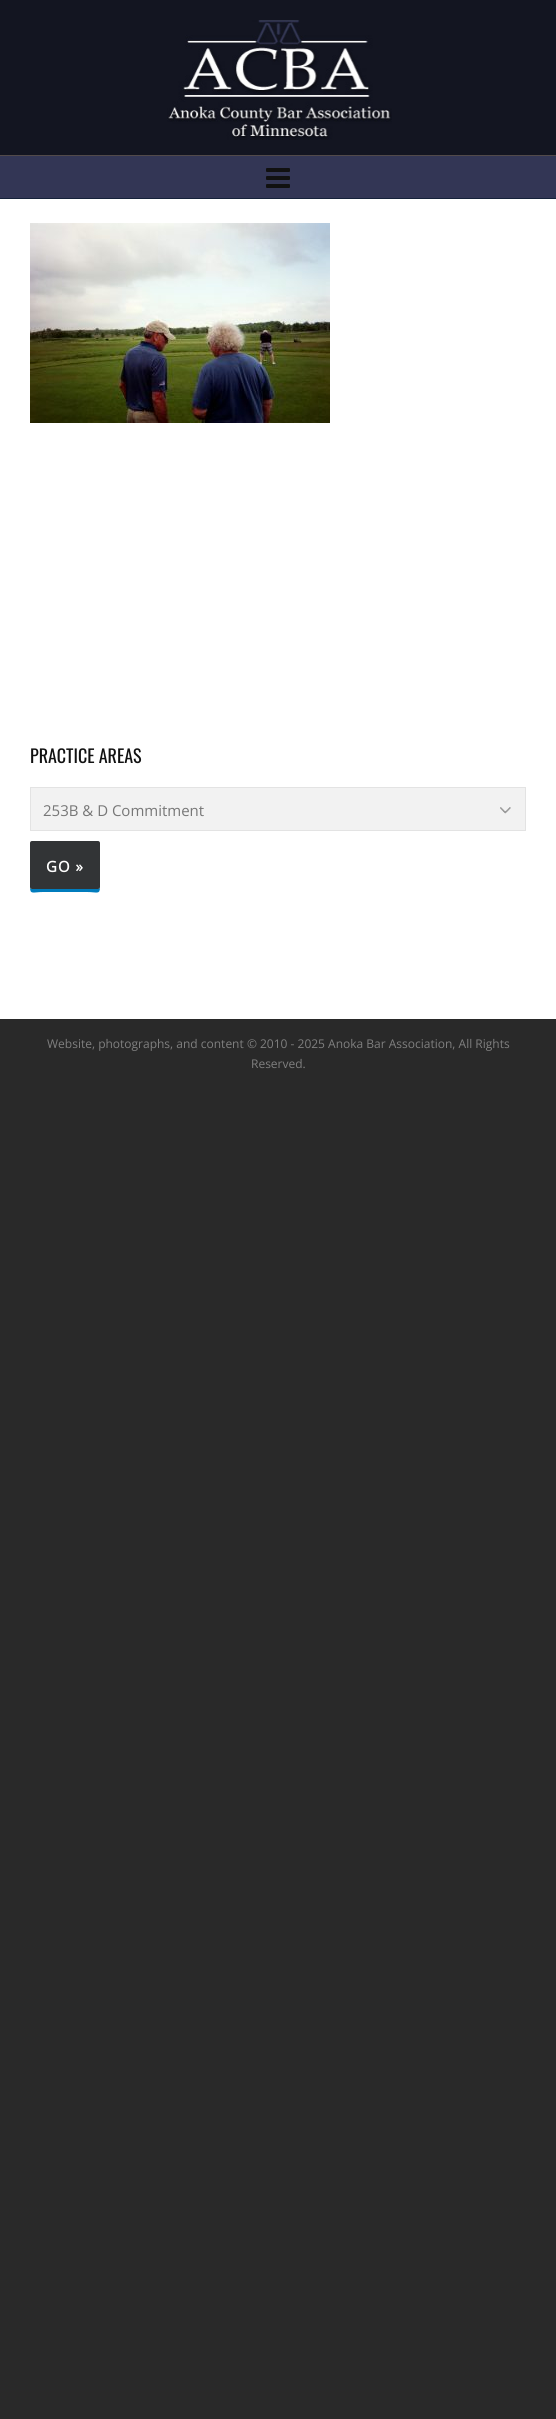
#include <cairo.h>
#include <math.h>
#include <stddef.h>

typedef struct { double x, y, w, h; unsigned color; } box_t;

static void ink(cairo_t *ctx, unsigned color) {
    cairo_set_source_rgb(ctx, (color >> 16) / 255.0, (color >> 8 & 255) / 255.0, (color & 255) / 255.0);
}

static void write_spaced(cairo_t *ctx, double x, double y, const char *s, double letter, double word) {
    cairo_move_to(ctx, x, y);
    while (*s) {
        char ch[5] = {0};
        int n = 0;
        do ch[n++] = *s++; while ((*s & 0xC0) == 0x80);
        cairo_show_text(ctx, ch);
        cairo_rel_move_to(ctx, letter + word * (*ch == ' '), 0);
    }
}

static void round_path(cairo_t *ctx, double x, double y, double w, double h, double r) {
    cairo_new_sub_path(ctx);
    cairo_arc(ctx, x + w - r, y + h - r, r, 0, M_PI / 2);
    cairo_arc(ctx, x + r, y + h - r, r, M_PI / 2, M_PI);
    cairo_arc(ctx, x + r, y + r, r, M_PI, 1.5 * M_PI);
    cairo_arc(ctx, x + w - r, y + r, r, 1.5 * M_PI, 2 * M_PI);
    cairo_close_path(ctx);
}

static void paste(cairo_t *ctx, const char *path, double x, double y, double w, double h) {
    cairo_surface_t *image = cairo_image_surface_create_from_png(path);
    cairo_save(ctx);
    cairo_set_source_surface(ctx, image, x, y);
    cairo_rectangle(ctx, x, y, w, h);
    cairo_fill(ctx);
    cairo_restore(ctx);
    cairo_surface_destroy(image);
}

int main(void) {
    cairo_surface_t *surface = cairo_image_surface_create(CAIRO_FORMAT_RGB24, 556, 2419);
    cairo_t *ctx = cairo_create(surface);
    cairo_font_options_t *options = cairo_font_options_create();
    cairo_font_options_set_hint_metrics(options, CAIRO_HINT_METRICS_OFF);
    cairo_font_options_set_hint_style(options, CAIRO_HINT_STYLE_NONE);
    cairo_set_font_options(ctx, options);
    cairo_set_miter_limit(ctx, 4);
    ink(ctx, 0x292929);
    cairo_paint(ctx);
    {
        static const box_t items[] = {
            {0, 199, 556, 820, 0xFFFFFF},
            {0, 0, 556, 155, 0x131521},
            {0, 198, 556, 1, 0x15223A},
        };
        for (size_t i = 0; i < sizeof items / sizeof *items; i++) {
            ink(ctx, items[i].color);
            cairo_rectangle(ctx, items[i].x, items[i].y, items[i].w, items[i].h);
            cairo_fill(ctx);
        }
    }
    paste(ctx, "media/1.png", 167, 20, 225, 120);
    ink(ctx, 0x333655);
    cairo_rectangle(ctx, 0, 156, 556, 42);
    cairo_fill(ctx);
    ink(ctx, 0x524A4A);
    cairo_rectangle(ctx, 0, 155, 556, 1);
    cairo_fill(ctx);
    paste(ctx, "media/2.png", 266, 168, 24, 20);
    paste(ctx, "media/3.png", 30, 223, 300, 200);
    cairo_select_font_face(ctx, "Oswald", CAIRO_FONT_SLANT_NORMAL, CAIRO_FONT_WEIGHT_NORMAL);
    cairo_set_font_size(ctx, 18);
    ink(ctx, 0x111111);
    cairo_move_to(ctx, 30, 763);
    cairo_show_text(ctx, "PRACTICE AREAS");
    ink(ctx, 0xF2F2F2);
    cairo_rectangle(ctx, 31, 788, 494, 42);
    cairo_fill(ctx);
    paste(ctx, "media/4.png", 500, 807, 11, 7);
    cairo_rectangle(ctx, 30.5, 787.5, 495, 43);
    ink(ctx, 0xE3E3E3);
    cairo_set_line_width(ctx, 1);
    cairo_stroke(ctx);
    cairo_select_font_face(ctx, "Open Sans", CAIRO_FONT_SLANT_NORMAL, CAIRO_FONT_WEIGHT_NORMAL);
    cairo_set_font_size(ctx, 15);
    ink(ctx, 0x777777);
    cairo_move_to(ctx, 43, 816);
    cairo_show_text(ctx, "253B & D Commitment");
    ink(ctx, 0x007CBD);
    cairo_new_path(ctx);
    cairo_move_to(ctx, 30, 887);
    cairo_curve_to(ctx, 30, 895, 33, 892, 43, 892);
    cairo_line_to(ctx, 87, 892);
    cairo_curve_to(ctx, 97, 892, 100, 895, 100, 887);
    cairo_curve_to(ctx, 100, 888, 99, 889, 98, 889);
    cairo_line_to(ctx, 31, 889);
    cairo_close_path(ctx);
    cairo_fill(ctx);
    ink(ctx, 0x323436);
    round_path(ctx, 30, 841, 70, 48, 2);
    cairo_fill(ctx);
    cairo_select_font_face(ctx, "Open Sans", CAIRO_FONT_SLANT_NORMAL, CAIRO_FONT_WEIGHT_BOLD);
    ink(ctx, 0xFFFFFF);
    write_spaced(ctx, 46, 872, "GO »", 1, 0);
    cairo_select_font_face(ctx, "Open Sans", CAIRO_FONT_SLANT_NORMAL, CAIRO_FONT_WEIGHT_NORMAL);
    cairo_set_font_size(ctx, 12);
    ink(ctx, 0x7F7F7F);
    cairo_move_to(ctx, 47, 1048);
    cairo_show_text(ctx, "Website, photographs, and content © 2010 - 2025 Anoka Bar Association, All Rights");
    cairo_move_to(ctx, 251, 1068);
    cairo_show_text(ctx, "Reserved.");
    cairo_surface_write_to_png(surface, "image.png");
    cairo_font_options_destroy(options);
    cairo_destroy(ctx);
    cairo_surface_destroy(surface);
    return 0;
}
